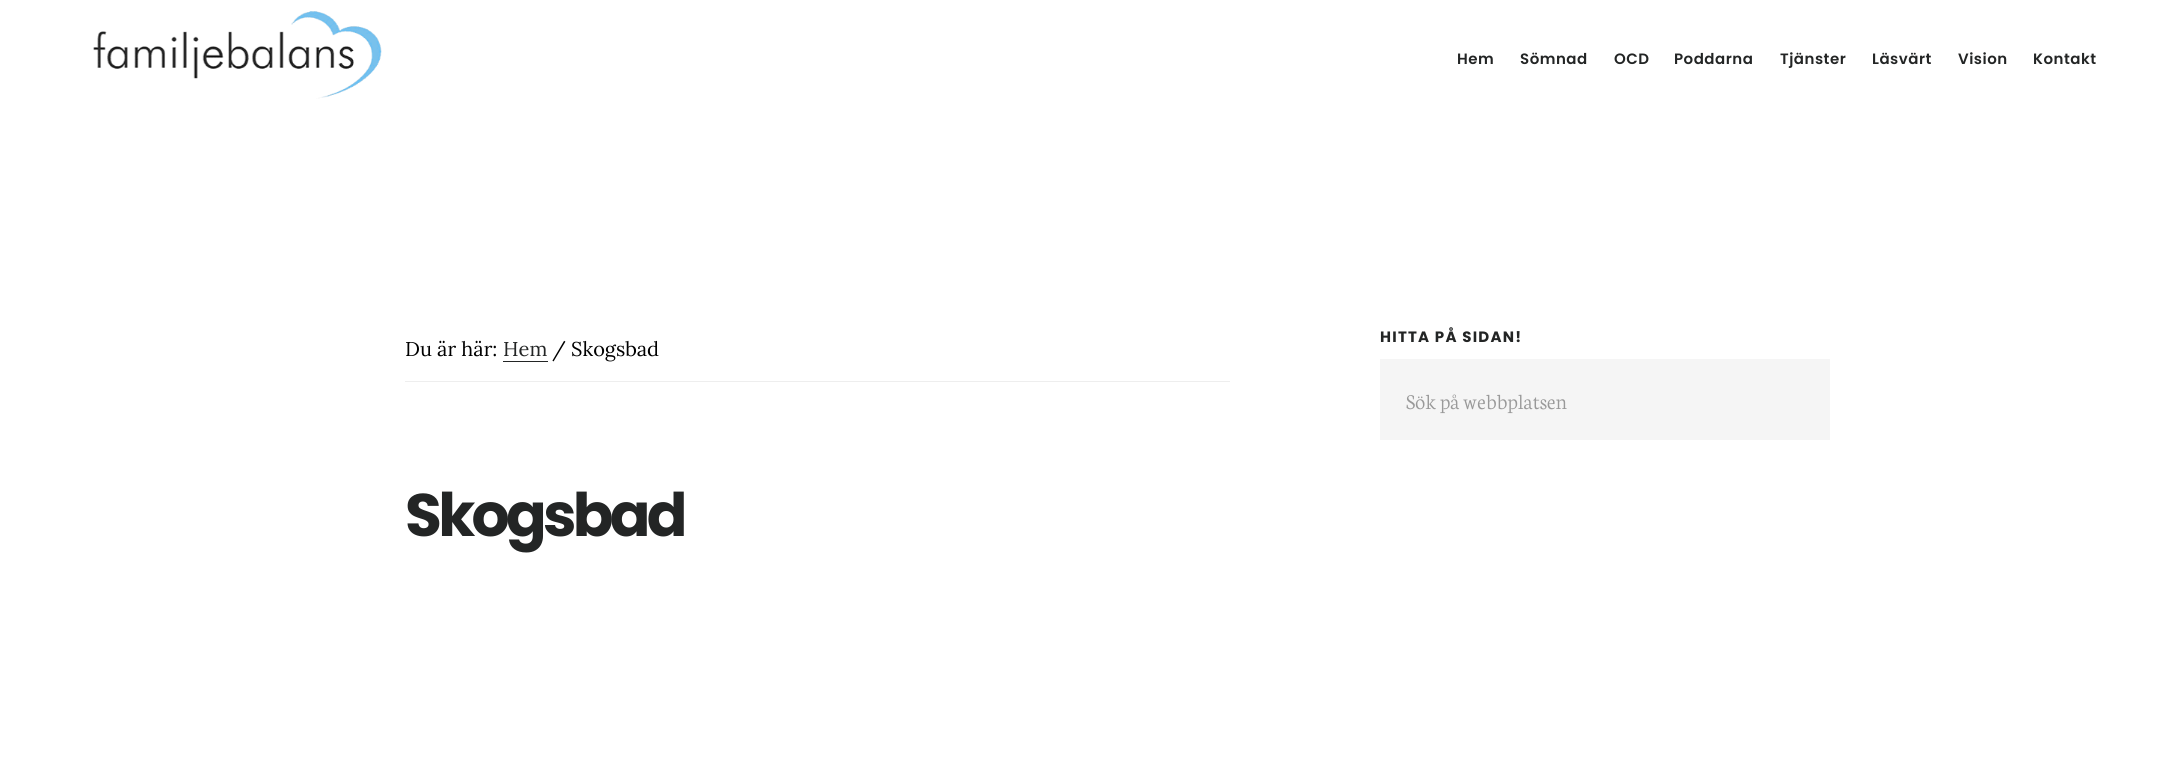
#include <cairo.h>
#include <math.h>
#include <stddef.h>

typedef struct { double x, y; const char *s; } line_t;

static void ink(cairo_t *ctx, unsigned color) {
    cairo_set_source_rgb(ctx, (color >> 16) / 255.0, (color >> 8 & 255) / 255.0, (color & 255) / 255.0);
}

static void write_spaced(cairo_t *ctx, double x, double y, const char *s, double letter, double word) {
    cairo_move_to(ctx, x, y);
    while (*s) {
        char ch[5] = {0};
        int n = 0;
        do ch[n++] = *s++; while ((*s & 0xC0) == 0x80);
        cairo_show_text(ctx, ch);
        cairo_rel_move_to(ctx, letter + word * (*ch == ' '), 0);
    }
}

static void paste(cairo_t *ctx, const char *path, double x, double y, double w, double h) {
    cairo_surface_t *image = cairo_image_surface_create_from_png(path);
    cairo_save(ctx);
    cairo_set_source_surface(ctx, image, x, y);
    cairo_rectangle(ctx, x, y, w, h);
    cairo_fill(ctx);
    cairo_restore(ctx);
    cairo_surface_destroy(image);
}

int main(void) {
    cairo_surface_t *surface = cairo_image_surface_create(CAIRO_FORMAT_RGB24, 2159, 772);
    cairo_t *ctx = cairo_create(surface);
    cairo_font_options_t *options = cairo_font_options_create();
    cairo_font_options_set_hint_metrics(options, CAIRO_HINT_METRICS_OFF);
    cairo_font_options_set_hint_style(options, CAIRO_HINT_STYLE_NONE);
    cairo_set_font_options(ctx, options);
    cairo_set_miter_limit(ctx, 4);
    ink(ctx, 0xFFFFFF);
    cairo_paint(ctx);
    paste(ctx, "media/1.png", 93, 11, 289, 88);
    cairo_select_font_face(ctx, "Poppins SemiBold", CAIRO_FONT_SLANT_NORMAL, CAIRO_FONT_WEIGHT_NORMAL);
    cairo_set_font_size(ctx, 15);
    ink(ctx, 0x232525);
    {
        static const line_t items[] = {
            {1457, 64, "Hem"},
            {1520, 64, "Sömnad"},
            {1614, 64, "OCD"},
            {1674, 64, "Poddarna"},
            {1780, 64, "Tjänster"},
            {1872, 64, "Läsvärt"},
            {1958, 64, "Vision"},
            {2033, 64, "Kontakt"},
        };
        for (size_t i = 0; i < sizeof items / sizeof *items; i++) {
            write_spaced(ctx, items[i].x, items[i].y, items[i].s, 0.5, 0);
        }
    }
    ink(ctx, 0xEEEEEE);
    cairo_rectangle(ctx, 405, 381, 825, 1);
    cairo_fill(ctx);
    cairo_select_font_face(ctx, "Lora", CAIRO_FONT_SLANT_NORMAL, CAIRO_FONT_WEIGHT_NORMAL);
    cairo_set_font_size(ctx, 20);
    ink(ctx, 0x000000);
    cairo_move_to(ctx, 405, 356);
    cairo_show_text(ctx, "Du är här:");
    ink(ctx, 0x232525);
    cairo_move_to(ctx, 503, 356);
    cairo_show_text(ctx, "Hem");
    cairo_rectangle(ctx, 503, 361, 45, 1);
    cairo_fill(ctx);
    ink(ctx, 0x000000);
    cairo_move_to(ctx, 552, 356);
    cairo_show_text(ctx, "/ Skogsbad");
    cairo_select_font_face(ctx, "Poppins", CAIRO_FONT_SLANT_NORMAL, CAIRO_FONT_WEIGHT_BOLD);
    cairo_set_font_size(ctx, 60);
    ink(ctx, 0x232525);
    write_spaced(ctx, 405, 536, "Skogsbad", -3.75, 0);
    cairo_set_font_size(ctx, 15);
    write_spaced(ctx, 1380, 342, "HITTA PÅ SIDAN!", 1.25, 0);
    ink(ctx, 0xF5F5F5);
    cairo_rectangle(ctx, 1380, 359, 450, 81);
    cairo_fill(ctx);
    cairo_select_font_face(ctx, "Neuton Light", CAIRO_FONT_SLANT_NORMAL, CAIRO_FONT_WEIGHT_NORMAL);
    cairo_set_font_size(ctx, 22.5);
    ink(ctx, 0x999999);
    cairo_move_to(ctx, 1406, 409);
    cairo_show_text(ctx, "Sök på webbplatsen");
    cairo_surface_write_to_png(surface, "image.png");
    cairo_font_options_destroy(options);
    cairo_destroy(ctx);
    cairo_surface_destroy(surface);
    return 0;
}
